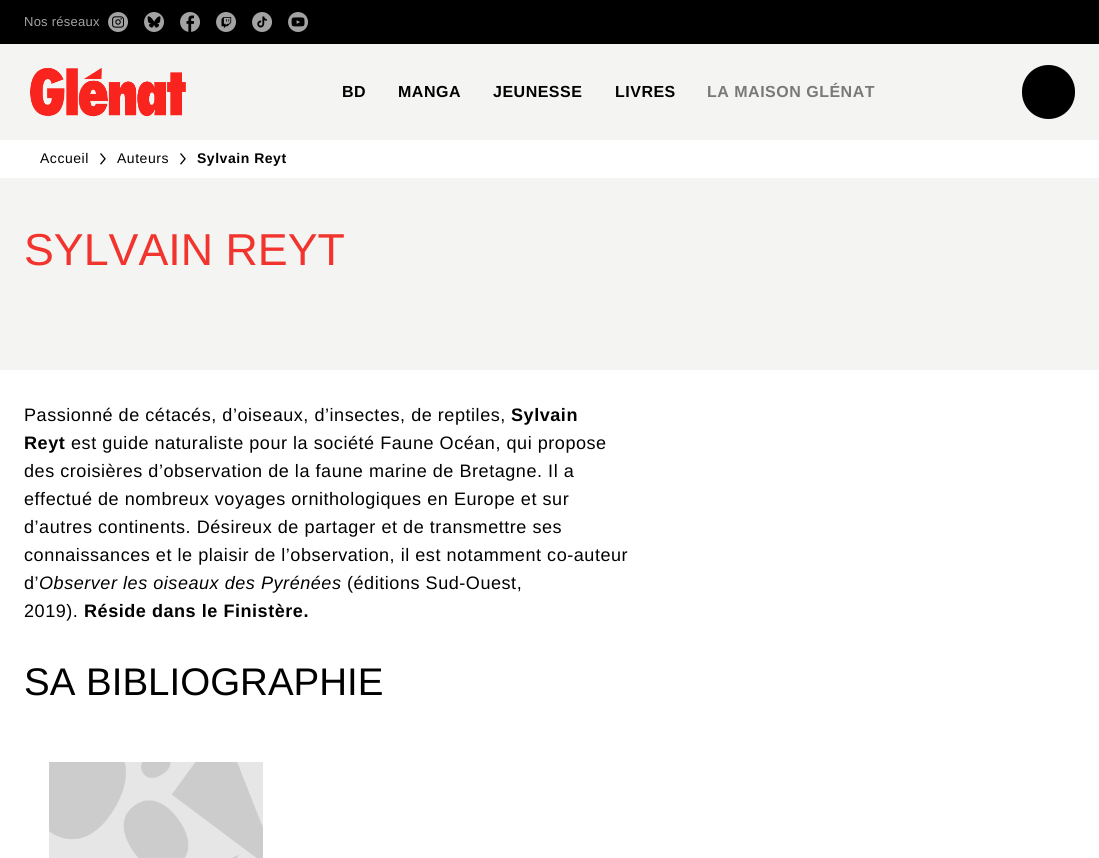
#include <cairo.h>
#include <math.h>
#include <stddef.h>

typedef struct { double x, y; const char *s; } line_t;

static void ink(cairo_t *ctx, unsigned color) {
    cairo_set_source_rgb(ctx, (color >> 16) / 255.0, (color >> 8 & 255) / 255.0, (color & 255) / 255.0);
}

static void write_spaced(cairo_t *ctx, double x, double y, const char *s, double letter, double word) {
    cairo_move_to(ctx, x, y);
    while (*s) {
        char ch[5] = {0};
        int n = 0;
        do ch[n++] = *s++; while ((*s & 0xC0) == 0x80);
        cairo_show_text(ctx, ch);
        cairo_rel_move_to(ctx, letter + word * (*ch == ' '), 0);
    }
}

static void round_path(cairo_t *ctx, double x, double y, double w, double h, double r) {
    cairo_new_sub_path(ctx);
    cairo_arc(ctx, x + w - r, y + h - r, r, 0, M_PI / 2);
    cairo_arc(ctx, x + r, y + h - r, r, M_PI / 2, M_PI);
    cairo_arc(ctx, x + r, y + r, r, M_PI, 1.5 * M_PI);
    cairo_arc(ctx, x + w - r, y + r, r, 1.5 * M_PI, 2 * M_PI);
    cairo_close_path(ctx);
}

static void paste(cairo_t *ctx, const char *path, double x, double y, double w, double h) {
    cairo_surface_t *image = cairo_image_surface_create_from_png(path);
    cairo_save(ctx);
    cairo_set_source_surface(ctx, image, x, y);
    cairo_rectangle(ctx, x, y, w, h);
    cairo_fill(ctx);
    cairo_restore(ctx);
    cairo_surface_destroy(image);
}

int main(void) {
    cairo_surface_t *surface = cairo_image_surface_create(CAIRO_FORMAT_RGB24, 1099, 858);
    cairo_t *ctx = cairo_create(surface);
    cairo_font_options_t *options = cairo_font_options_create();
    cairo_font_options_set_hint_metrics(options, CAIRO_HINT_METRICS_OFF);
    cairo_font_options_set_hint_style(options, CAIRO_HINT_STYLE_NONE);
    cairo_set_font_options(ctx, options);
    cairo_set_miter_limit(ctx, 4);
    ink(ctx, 0xFFFFFF);
    cairo_paint(ctx);
    ink(ctx, 0x000000);
    cairo_rectangle(ctx, 0, 0, 1099, 44);
    cairo_fill(ctx);
    cairo_select_font_face(ctx, "Liberation Sans", CAIRO_FONT_SLANT_NORMAL, CAIRO_FONT_WEIGHT_NORMAL);
    cairo_set_font_size(ctx, 13);
    ink(ctx, 0xA3A3A3);
    write_spaced(ctx, 24, 26, "Nos réseaux", 0.25, 0);
    paste(ctx, "media/1.png", 108, 12, 20, 20);
    paste(ctx, "media/2.png", 144, 12, 20, 20);
    paste(ctx, "media/3.png", 180, 12, 20, 20);
    paste(ctx, "media/4.png", 216, 12, 20, 20);
    paste(ctx, "media/5.png", 252, 12, 20, 20);
    paste(ctx, "media/6.png", 288, 12, 20, 20);
    ink(ctx, 0xF4F4F2);
    cairo_rectangle(ctx, 0, 44, 1099, 96);
    cairo_fill(ctx);
    paste(ctx, "media/7.png", 30, 68, 156, 49);
    cairo_select_font_face(ctx, "Liberation Sans", CAIRO_FONT_SLANT_NORMAL, CAIRO_FONT_WEIGHT_BOLD);
    cairo_set_font_size(ctx, 16);
    ink(ctx, 0x000000);
    {
        static const line_t items[] = {
            {342, 97, "BD"},
            {398, 97, "MANGA"},
            {493, 97, "JEUNESSE"},
            {615, 97, "LIVRES"},
        };
        for (size_t i = 0; i < sizeof items / sizeof *items; i++) {
            write_spaced(ctx, items[i].x, items[i].y, items[i].s, 0.5, 0);
        }
    }
    ink(ctx, 0x797978);
    write_spaced(ctx, 707, 97, "LA MAISON GLÉNAT", 0.5, 0);
    ink(ctx, 0x000000);
    round_path(ctx, 1022, 65, 53, 54, 26.5);
    cairo_fill(ctx);
    cairo_select_font_face(ctx, "Liberation Sans", CAIRO_FONT_SLANT_NORMAL, CAIRO_FONT_WEIGHT_NORMAL);
    cairo_set_font_size(ctx, 14);
    write_spaced(ctx, 40, 163, "Accueil", 0.53, 0);
    paste(ctx, "media/8.png", 100, 153, 6, 12);
    write_spaced(ctx, 117, 163, "Auteurs", 0.53, 0);
    paste(ctx, "media/8.png", 180, 153, 6, 12);
    cairo_select_font_face(ctx, "Liberation Sans", CAIRO_FONT_SLANT_NORMAL, CAIRO_FONT_WEIGHT_BOLD);
    write_spaced(ctx, 197, 163, "Sylvain Reyt", 0.53, 0);
    ink(ctx, 0xF4F4F2);
    cairo_rectangle(ctx, 0, 178, 1099, 192);
    cairo_fill(ctx);
    cairo_select_font_face(ctx, "Liberation Sans", CAIRO_FONT_SLANT_NORMAL, CAIRO_FONT_WEIGHT_NORMAL);
    cairo_set_font_size(ctx, 44.75);
    ink(ctx, 0xF1352E);
    cairo_move_to(ctx, 24, 265);
    cairo_show_text(ctx, "SYLVAIN REYT");
    cairo_set_font_size(ctx, 18.05);
    ink(ctx, 0x000000);
    write_spaced(ctx, 24, 421, "Passionné de cétacés, d’oiseaux, d’insectes, de reptiles,", 0.53, 0);
    cairo_select_font_face(ctx, "Liberation Sans", CAIRO_FONT_SLANT_NORMAL, CAIRO_FONT_WEIGHT_BOLD);
    write_spaced(ctx, 511, 421, "Sylvain", 0.53, 0);
    write_spaced(ctx, 24, 449, "Reyt", 0.53, 0);
    cairo_select_font_face(ctx, "Liberation Sans", CAIRO_FONT_SLANT_NORMAL, CAIRO_FONT_WEIGHT_NORMAL);
    {
        static const line_t items[] = {
            {71, 449, "est guide naturaliste pour la société Faune Océan, qui propose"},
            {24, 477, "des croisières d’observation de la faune marine de Bretagne. Il a"},
            {24, 505, "effectué de nombreux voyages ornithologiques en Europe et sur"},
            {24, 533, "d’autres continents. Désireux de partager et de transmettre ses"},
            {24, 561, "connaissances et le plaisir de l’observation, il est notamment co-auteur"},
            {24, 589, "d’"},
        };
        for (size_t i = 0; i < sizeof items / sizeof *items; i++) {
            write_spaced(ctx, items[i].x, items[i].y, items[i].s, 0.53, 0);
        }
    }
    cairo_select_font_face(ctx, "Liberation Sans", CAIRO_FONT_SLANT_ITALIC, CAIRO_FONT_WEIGHT_NORMAL);
    write_spaced(ctx, 39, 589, "Observer les oiseaux des Pyrénées", 0.53, 0);
    cairo_select_font_face(ctx, "Liberation Sans", CAIRO_FONT_SLANT_NORMAL, CAIRO_FONT_WEIGHT_NORMAL);
    write_spaced(ctx, 347, 589, "(éditions Sud-Ouest,", 0.53, 0);
    write_spaced(ctx, 24, 617, "2019).", 0.53, 0);
    cairo_select_font_face(ctx, "Liberation Sans", CAIRO_FONT_SLANT_NORMAL, CAIRO_FONT_WEIGHT_BOLD);
    write_spaced(ctx, 84, 617, "Réside dans le Finistère.", 0.53, 0);
    cairo_select_font_face(ctx, "Liberation Sans", CAIRO_FONT_SLANT_NORMAL, CAIRO_FONT_WEIGHT_NORMAL);
    cairo_set_font_size(ctx, 38.5);
    cairo_move_to(ctx, 24, 695);
    cairo_show_text(ctx, "SA BIBLIOGRAPHIE");
    paste(ctx, "media/9.png", 49, 762, 214, 96);
    cairo_surface_write_to_png(surface, "image.png");
    cairo_font_options_destroy(options);
    cairo_destroy(ctx);
    cairo_surface_destroy(surface);
    return 0;
}
